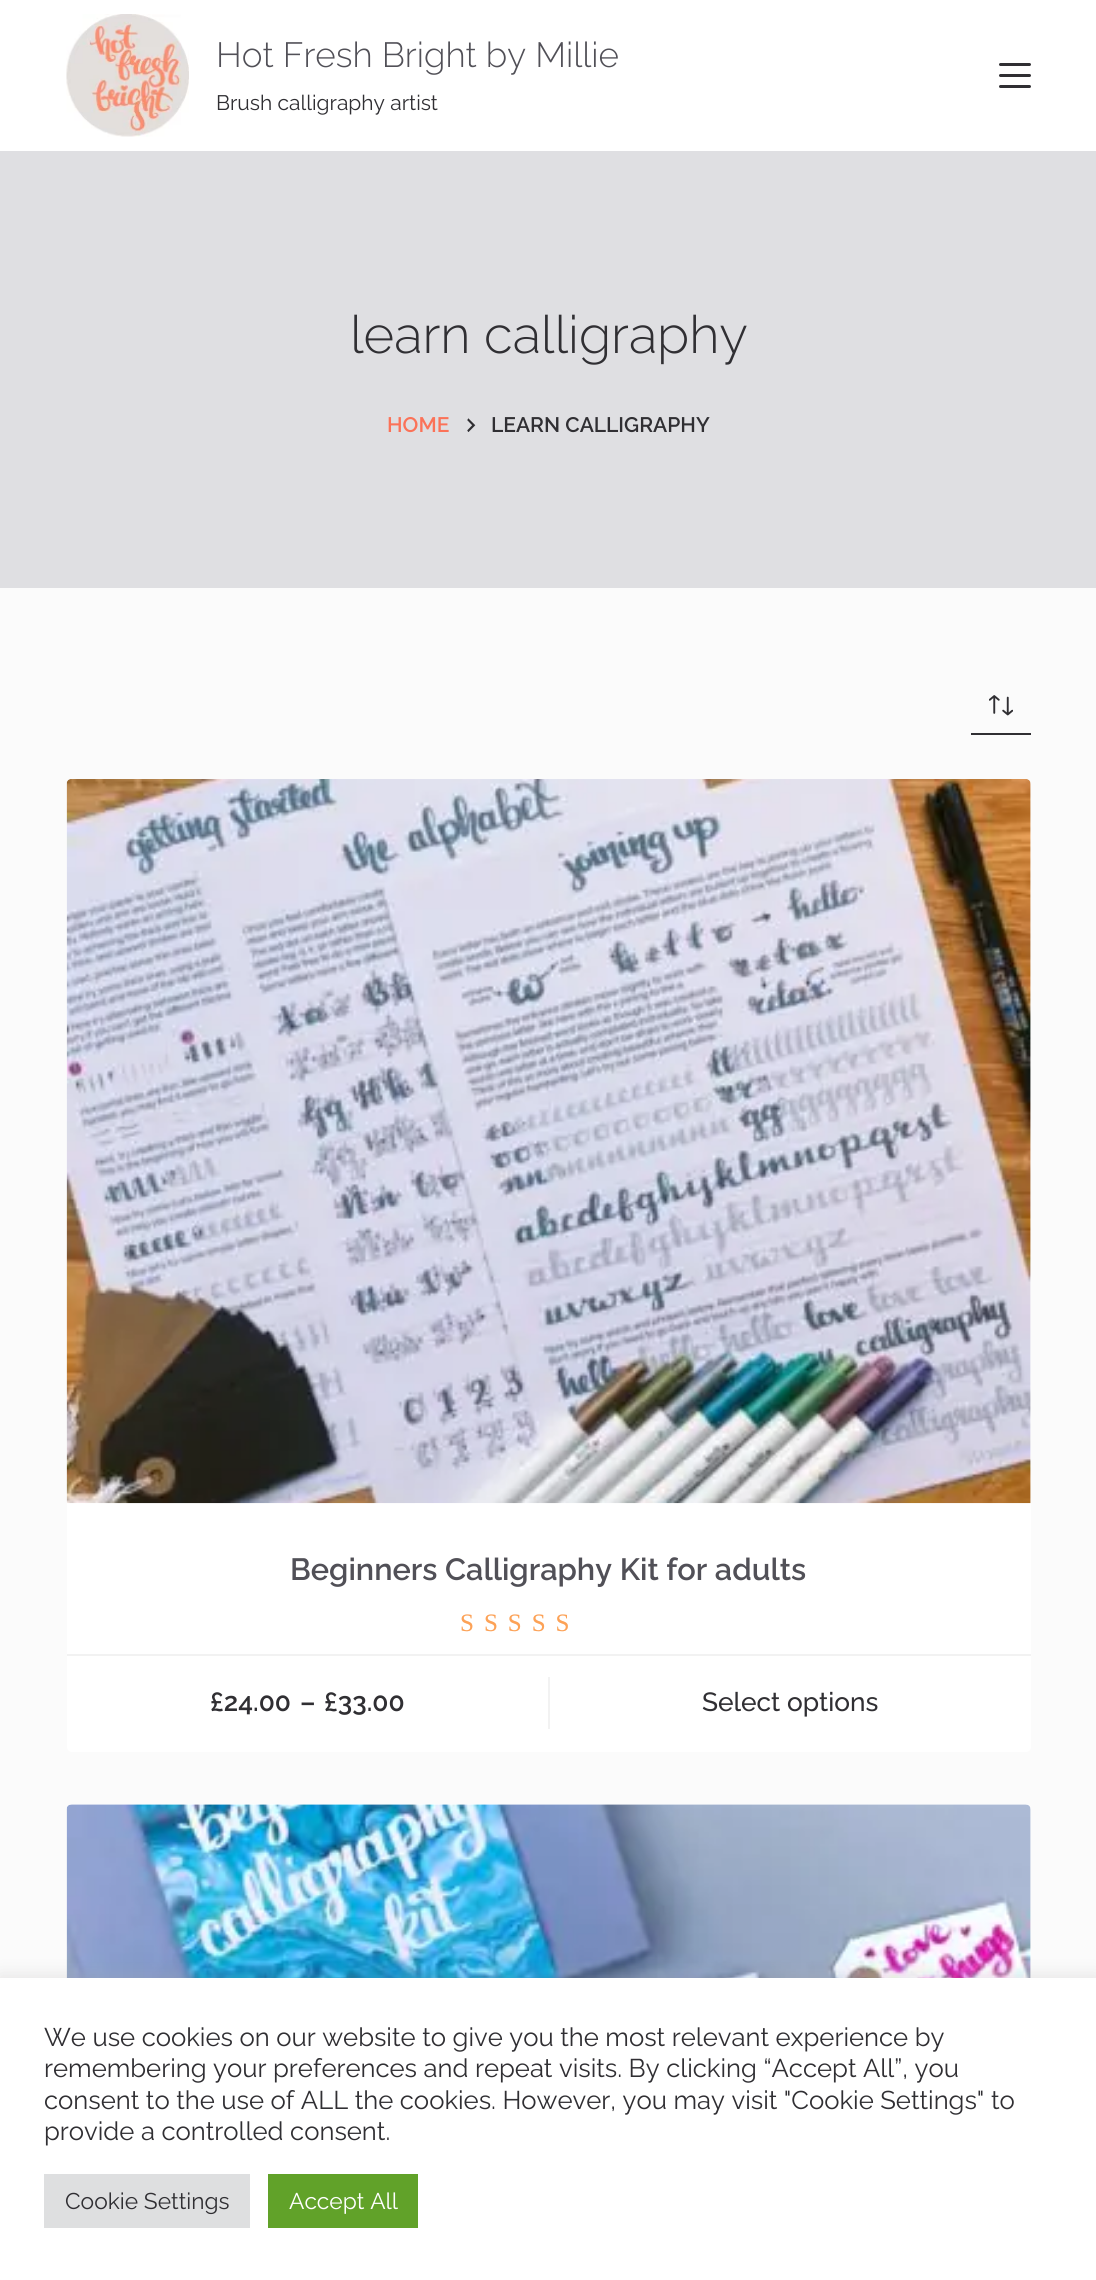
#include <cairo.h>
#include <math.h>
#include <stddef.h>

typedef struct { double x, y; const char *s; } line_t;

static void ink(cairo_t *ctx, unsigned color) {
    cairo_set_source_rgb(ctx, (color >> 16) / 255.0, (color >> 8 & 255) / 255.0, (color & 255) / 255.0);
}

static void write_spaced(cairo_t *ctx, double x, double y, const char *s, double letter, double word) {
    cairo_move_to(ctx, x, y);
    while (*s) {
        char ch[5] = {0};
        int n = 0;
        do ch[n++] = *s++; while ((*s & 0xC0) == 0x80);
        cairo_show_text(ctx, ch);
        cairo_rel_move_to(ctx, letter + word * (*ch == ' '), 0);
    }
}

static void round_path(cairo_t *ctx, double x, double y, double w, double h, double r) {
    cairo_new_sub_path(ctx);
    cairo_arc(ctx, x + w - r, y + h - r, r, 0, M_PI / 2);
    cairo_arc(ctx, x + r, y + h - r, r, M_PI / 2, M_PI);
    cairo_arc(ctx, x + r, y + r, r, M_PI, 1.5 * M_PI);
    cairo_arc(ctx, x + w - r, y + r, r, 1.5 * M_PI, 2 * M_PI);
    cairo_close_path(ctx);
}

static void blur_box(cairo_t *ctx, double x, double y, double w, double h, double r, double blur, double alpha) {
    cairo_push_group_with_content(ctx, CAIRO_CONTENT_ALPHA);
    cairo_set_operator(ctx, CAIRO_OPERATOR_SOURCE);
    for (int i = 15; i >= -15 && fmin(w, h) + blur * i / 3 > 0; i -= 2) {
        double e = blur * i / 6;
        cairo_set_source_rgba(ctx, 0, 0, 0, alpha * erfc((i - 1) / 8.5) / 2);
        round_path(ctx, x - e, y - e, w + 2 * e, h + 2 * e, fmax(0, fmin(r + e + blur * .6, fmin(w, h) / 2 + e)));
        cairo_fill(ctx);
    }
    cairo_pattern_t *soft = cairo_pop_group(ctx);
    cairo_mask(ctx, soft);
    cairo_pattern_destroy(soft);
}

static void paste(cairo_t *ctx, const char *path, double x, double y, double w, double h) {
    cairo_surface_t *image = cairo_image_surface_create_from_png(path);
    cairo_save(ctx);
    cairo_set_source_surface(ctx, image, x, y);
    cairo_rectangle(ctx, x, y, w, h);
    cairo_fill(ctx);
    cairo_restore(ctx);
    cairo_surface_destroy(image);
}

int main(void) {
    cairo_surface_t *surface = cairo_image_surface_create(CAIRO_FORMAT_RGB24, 1096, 2280);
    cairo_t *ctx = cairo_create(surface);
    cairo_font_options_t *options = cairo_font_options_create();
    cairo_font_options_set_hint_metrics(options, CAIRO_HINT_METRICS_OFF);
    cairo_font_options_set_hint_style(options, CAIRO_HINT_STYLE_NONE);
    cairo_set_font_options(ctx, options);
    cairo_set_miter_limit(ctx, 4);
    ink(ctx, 0xFBFBFB);
    cairo_paint(ctx);
    ink(ctx, 0xFFFFFF);
    cairo_rectangle(ctx, 0, 0, 1096, 151);
    cairo_fill(ctx);
    paste(ctx, "media/1.png", 66, 14, 123, 123);
    cairo_select_font_face(ctx, "Raleway Light", CAIRO_FONT_SLANT_NORMAL, CAIRO_FONT_WEIGHT_NORMAL);
    cairo_set_font_size(ctx, 35);
    ink(ctx, 0x515057);
    cairo_move_to(ctx, 216, 67);
    cairo_show_text(ctx, "Hot Fresh Bright by Millie");
    cairo_select_font_face(ctx, "Raleway", CAIRO_FONT_SLANT_NORMAL, CAIRO_FONT_WEIGHT_NORMAL);
    cairo_set_font_size(ctx, 21);
    ink(ctx, 0x302F33);
    cairo_move_to(ctx, 216, 110);
    cairo_show_text(ctx, "Brush calligraphy artist");
    round_path(ctx, 999, 63, 32, 3, 1.5);
    cairo_fill(ctx);
    round_path(ctx, 999, 74, 32, 3, 1.5);
    cairo_fill(ctx);
    round_path(ctx, 999, 85, 32, 3, 1.5);
    cairo_fill(ctx);
    ink(ctx, 0xDFDFE2);
    cairo_rectangle(ctx, 0, 151, 1096, 437);
    cairo_fill(ctx);
    cairo_select_font_face(ctx, "Raleway Light", CAIRO_FONT_SLANT_NORMAL, CAIRO_FONT_WEIGHT_NORMAL);
    cairo_set_font_size(ctx, 52.5);
    ink(ctx, 0x302F33);
    cairo_move_to(ctx, 350, 353);
    cairo_show_text(ctx, "learn calligraphy");
    cairo_select_font_face(ctx, "Raleway SemiBold", CAIRO_FONT_SLANT_NORMAL, CAIRO_FONT_WEIGHT_NORMAL);
    cairo_set_font_size(ctx, 21);
    ink(ctx, 0xFB7258);
    cairo_move_to(ctx, 387, 432);
    cairo_show_text(ctx, "HOME");
    paste(ctx, "media/2.png", 467, 418, 9, 14);
    ink(ctx, 0x302F33);
    cairo_move_to(ctx, 491, 432);
    cairo_show_text(ctx, "LEARN CALLIGRAPHY");
    paste(ctx, "media/3.png", 989, 695, 24, 21);
    cairo_rectangle(ctx, 971, 733, 60, 2);
    cairo_fill(ctx);
    ink(ctx, 0xFFFFFF);
    round_path(ctx, 67, 779, 964, 973, 5);
    cairo_fill(ctx);
    paste(ctx, "media/4.png", 66, 779, 965, 725);
    cairo_set_font_size(ctx, 30.75);
    ink(ctx, 0x515057);
    cairo_move_to(ctx, 290, 1580);
    cairo_show_text(ctx, "Beginners Calligraphy Kit for adults");
    cairo_select_font_face(ctx, "Liberation Serif", CAIRO_FONT_SLANT_NORMAL, CAIRO_FONT_WEIGHT_NORMAL);
    cairo_set_font_size(ctx, 25);
    ink(ctx, 0xF9DFCC);
    write_spaced(ctx, 460, 1631, "SSSSS", 10, 0);
    ink(ctx, 0xFDA256);
    write_spaced(ctx, 460, 1631, "SSSSS", 10, 0);
    ink(ctx, 0xF2F2F2);
    cairo_rectangle(ctx, 67, 1654, 964, 2);
    cairo_fill(ctx);
    cairo_select_font_face(ctx, "Raleway SemiBold", CAIRO_FONT_SLANT_NORMAL, CAIRO_FONT_WEIGHT_NORMAL);
    cairo_set_font_size(ctx, 26.25);
    ink(ctx, 0x302F33);
    {
        static const line_t items[] = {
            {210, 1711, "£24.00"},
            {300, 1711, "–"},
            {324, 1711, "£33.00"},
        };
        for (size_t i = 0; i < sizeof items / sizeof *items; i++) {
            cairo_move_to(ctx, items[i].x, items[i].y);
            cairo_show_text(ctx, items[i].s);
        }
    }
    ink(ctx, 0xF2F2F2);
    cairo_rectangle(ctx, 548, 1677, 2, 52);
    cairo_fill(ctx);
    cairo_select_font_face(ctx, "Raleway Medium", CAIRO_FONT_SLANT_NORMAL, CAIRO_FONT_WEIGHT_NORMAL);
    ink(ctx, 0x302F33);
    cairo_move_to(ctx, 702, 1711);
    cairo_show_text(ctx, "Select options");
    ink(ctx, 0xFFFFFF);
    round_path(ctx, 67, 1804, 964, 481, 5);
    cairo_fill(ctx);
    paste(ctx, "media/5.png", 66, 1804, 965, 174);
    ink(ctx, 0xACABAB);
    blur_box(ctx, 0, 1976, 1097, 303, 0, 9, 0.3);
    ink(ctx, 0xFFFFFF);
    cairo_rectangle(ctx, 0, 1978, 1096, 302);
    cairo_fill(ctx);
    cairo_select_font_face(ctx, "Raleway", CAIRO_FONT_SLANT_NORMAL, CAIRO_FONT_WEIGHT_NORMAL);
    cairo_set_font_size(ctx, 25.65);
    ink(ctx, 0x302F33);
    {
        static const line_t items[] = {
            {44, 2046, "We use cookies on our website to give you the most relevant experience by"},
            {44, 2077, "remembering your preferences and repeat visits. By clicking “Accept All”, you"},
            {44, 2109, "consent to the use of ALL the cookies. However, you may visit \"Cookie Settings\" to"},
            {44, 2140, "provide a controlled consent."},
        };
        for (size_t i = 0; i < sizeof items / sizeof *items; i++) {
            cairo_move_to(ctx, items[i].x, items[i].y);
            cairo_show_text(ctx, items[i].s);
        }
    }
    ink(ctx, 0xDEDFE0);
    cairo_rectangle(ctx, 44, 2174, 206, 54);
    cairo_fill(ctx);
    cairo_set_font_size(ctx, 22.75);
    ink(ctx, 0x302F33);
    cairo_move_to(ctx, 65, 2209);
    cairo_show_text(ctx, "Cookie Settings");
    ink(ctx, 0x61A229);
    cairo_rectangle(ctx, 268, 2174, 150, 54);
    cairo_fill(ctx);
    ink(ctx, 0xFFFFFF);
    cairo_move_to(ctx, 289, 2209);
    cairo_show_text(ctx, "Accept All");
    cairo_surface_write_to_png(surface, "image.png");
    cairo_font_options_destroy(options);
    cairo_destroy(ctx);
    cairo_surface_destroy(surface);
    return 0;
}
